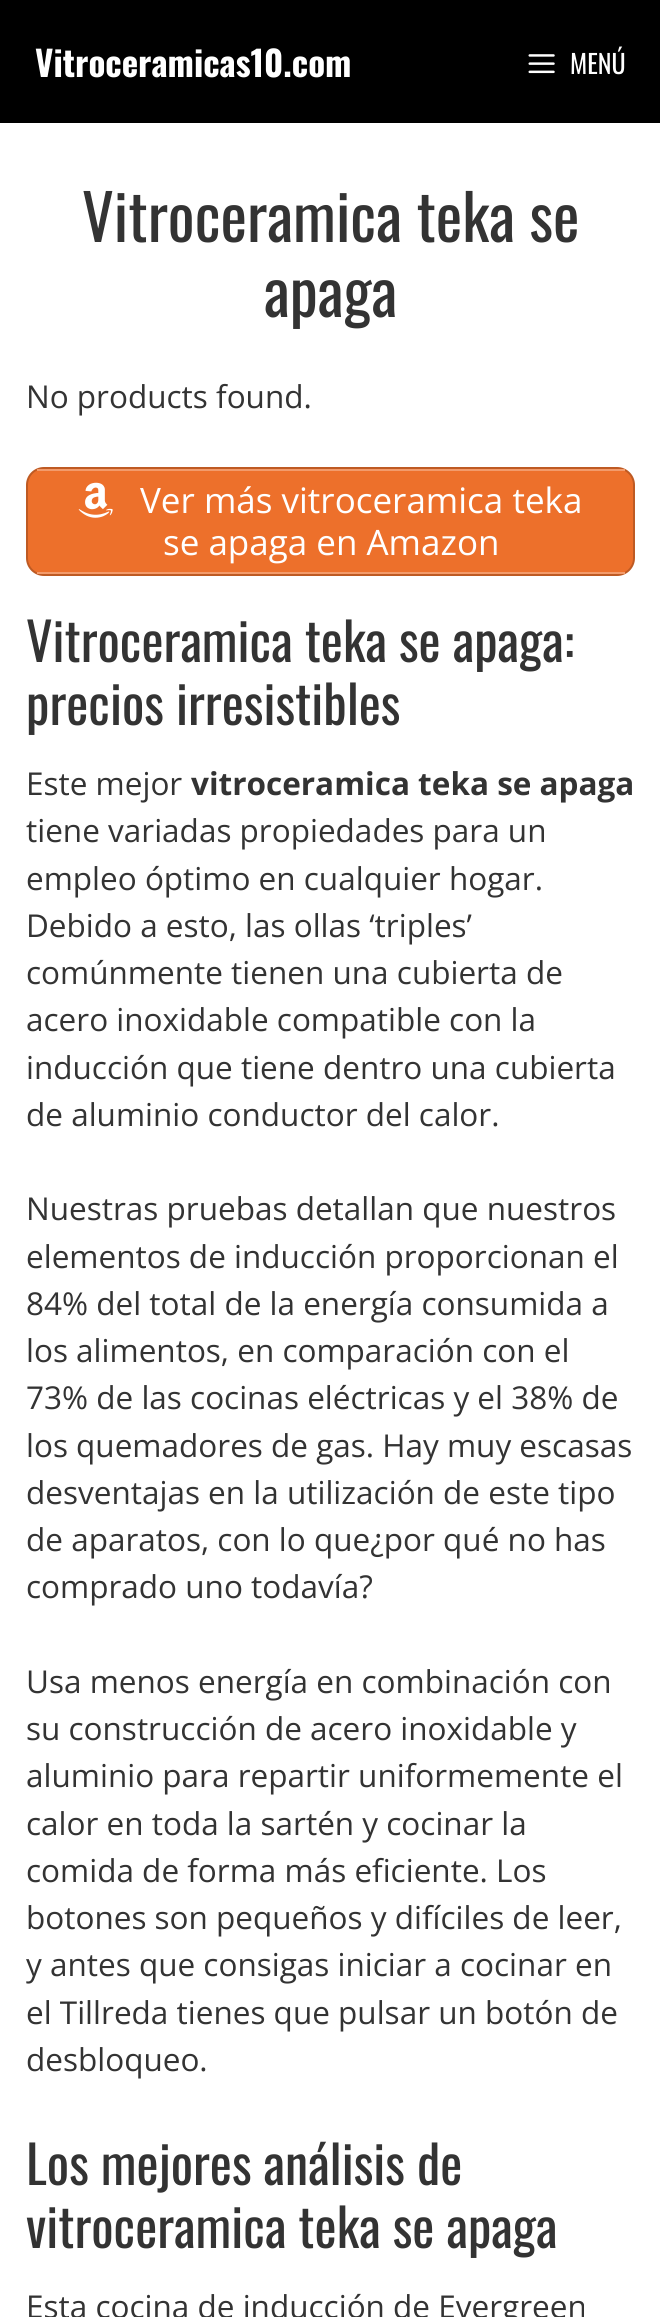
#include <cairo.h>
#include <math.h>
#include <stddef.h>

typedef struct { double x, y; const char *s; } line_t;

static void ink(cairo_t *ctx, unsigned color) {
    cairo_set_source_rgb(ctx, (color >> 16) / 255.0, (color >> 8 & 255) / 255.0, (color & 255) / 255.0);
}

static void round_path(cairo_t *ctx, double x, double y, double w, double h, double r) {
    cairo_new_sub_path(ctx);
    cairo_arc(ctx, x + w - r, y + h - r, r, 0, M_PI / 2);
    cairo_arc(ctx, x + r, y + h - r, r, M_PI / 2, M_PI);
    cairo_arc(ctx, x + r, y + r, r, M_PI, 1.5 * M_PI);
    cairo_arc(ctx, x + w - r, y + r, r, 1.5 * M_PI, 2 * M_PI);
    cairo_close_path(ctx);
}

static void paste(cairo_t *ctx, const char *path, double x, double y, double w, double h) {
    cairo_surface_t *image = cairo_image_surface_create_from_png(path);
    cairo_save(ctx);
    cairo_set_source_surface(ctx, image, x, y);
    cairo_rectangle(ctx, x, y, w, h);
    cairo_fill(ctx);
    cairo_restore(ctx);
    cairo_surface_destroy(image);
}

int main(void) {
    cairo_surface_t *surface = cairo_image_surface_create(CAIRO_FORMAT_RGB24, 660, 2317);
    cairo_t *ctx = cairo_create(surface);
    cairo_font_options_t *options = cairo_font_options_create();
    cairo_font_options_set_hint_metrics(options, CAIRO_HINT_METRICS_OFF);
    cairo_font_options_set_hint_style(options, CAIRO_HINT_STYLE_NONE);
    cairo_set_font_options(ctx, options);
    cairo_set_miter_limit(ctx, 4);
    ink(ctx, 0xFFFFFF);
    cairo_paint(ctx);
    ink(ctx, 0x000000);
    cairo_rectangle(ctx, 0, 0, 660, 123);
    cairo_fill(ctx);
    cairo_select_font_face(ctx, "Oswald", CAIRO_FONT_SLANT_NORMAL, CAIRO_FONT_WEIGHT_BOLD);
    cairo_set_font_size(ctx, 35);
    ink(ctx, 0xFFFFFF);
    cairo_move_to(ctx, 35, 77);
    cairo_show_text(ctx, "Vitroceramicas10.com");
    paste(ctx, "media/1.png", 528, 54, 27, 20);
    cairo_select_font_face(ctx, "Oswald", CAIRO_FONT_SLANT_NORMAL, CAIRO_FONT_WEIGHT_NORMAL);
    cairo_set_font_size(ctx, 26);
    cairo_move_to(ctx, 570, 74);
    cairo_show_text(ctx, "MENÚ");
    cairo_set_font_size(ctx, 63);
    ink(ctx, 0x333333);
    cairo_move_to(ctx, 82, 242);
    cairo_show_text(ctx, "Vitroceramica teka se");
    cairo_move_to(ctx, 264, 317);
    cairo_show_text(ctx, "apaga");
    cairo_select_font_face(ctx, "Open Sans", CAIRO_FONT_SLANT_NORMAL, CAIRO_FONT_WEIGHT_NORMAL);
    cairo_set_font_size(ctx, 31.5);
    cairo_move_to(ctx, 26, 408);
    cairo_show_text(ctx, "No products found.");
    ink(ctx, 0xED702B);
    round_path(ctx, 27, 468, 607, 107, 17);
    cairo_fill_preserve(ctx);
    ink(ctx, 0xBE5A23);
    cairo_stroke(ctx);
    ink(ctx, 0xF39B6B);
    cairo_rectangle(ctx, 37, 469, 588, 2);
    cairo_fill(ctx);
    cairo_rectangle(ctx, 37, 572, 588, 2);
    cairo_fill(ctx);
    paste(ctx, "media/2.png", 78, 482, 35, 36);
    cairo_set_font_size(ctx, 35);
    ink(ctx, 0xFFFFFF);
    cairo_move_to(ctx, 140, 513);
    cairo_show_text(ctx, "Ver más vitroceramica teka");
    cairo_move_to(ctx, 163, 555);
    cairo_show_text(ctx, "se apaga en Amazon");
    cairo_select_font_face(ctx, "Oswald", CAIRO_FONT_SLANT_NORMAL, CAIRO_FONT_WEIGHT_NORMAL);
    cairo_set_font_size(ctx, 52.5);
    ink(ctx, 0x333333);
    cairo_move_to(ctx, 26, 662);
    cairo_show_text(ctx, "Vitroceramica teka se apaga:");
    cairo_move_to(ctx, 26, 725);
    cairo_show_text(ctx, "precios irresistibles");
    cairo_select_font_face(ctx, "Open Sans", CAIRO_FONT_SLANT_NORMAL, CAIRO_FONT_WEIGHT_NORMAL);
    cairo_set_font_size(ctx, 31.5);
    cairo_move_to(ctx, 26, 795);
    cairo_show_text(ctx, "Este mejor");
    cairo_select_font_face(ctx, "Open Sans", CAIRO_FONT_SLANT_NORMAL, CAIRO_FONT_WEIGHT_BOLD);
    cairo_move_to(ctx, 191, 795);
    cairo_show_text(ctx, "vitroceramica teka se apaga");
    cairo_select_font_face(ctx, "Open Sans", CAIRO_FONT_SLANT_NORMAL, CAIRO_FONT_WEIGHT_NORMAL);
    {
        static const line_t items[] = {
            {26, 842, "tiene variadas propiedades para un"},
            {26, 890, "empleo óptimo en cualquier hogar."},
            {26, 937, "Debido a esto, las ollas ‘triples’"},
            {26, 984, "comúnmente tienen una cubierta de"},
            {26, 1031, "acero inoxidable compatible con la"},
            {26, 1079, "inducción que tiene dentro una cubierta"},
            {26, 1126, "de aluminio conductor del calor."},
            {26, 1220, "Nuestras pruebas detallan que nuestros"},
            {26, 1268, "elementos de inducción proporcionan el"},
            {26, 1315, "84% del total de la energía consumida a"},
            {26, 1362, "los alimentos, en comparación con el"},
            {26, 1409, "73% de las cocinas eléctricas y el 38% de"},
            {26, 1457, "los quemadores de gas. Hay muy escasas"},
            {26, 1504, "desventajas en la utilización de este tipo"},
            {26, 1551, "de aparatos, con lo que¿por qué no has"},
            {26, 1598, "comprado uno todavía?"},
            {26, 1693, "Usa menos energía en combinación con"},
            {26, 1740, "su construcción de acero inoxidable y"},
            {26, 1787, "aluminio para repartir uniformemente el"},
            {26, 1835, "calor en toda la sartén y cocinar la"},
            {26, 1882, "comida de forma más eficiente. Los"},
            {26, 1929, "botones son pequeños y difíciles de leer,"},
            {26, 1976, "y antes que consigas iniciar a cocinar en"},
            {26, 2024, "el Tillreda tienes que pulsar un botón de"},
            {26, 2071, "desbloqueo."},
        };
        for (size_t i = 0; i < sizeof items / sizeof *items; i++) {
            cairo_move_to(ctx, items[i].x, items[i].y);
            cairo_show_text(ctx, items[i].s);
        }
    }
    cairo_select_font_face(ctx, "Oswald", CAIRO_FONT_SLANT_NORMAL, CAIRO_FONT_WEIGHT_NORMAL);
    cairo_set_font_size(ctx, 52.5);
    cairo_move_to(ctx, 26, 2185);
    cairo_show_text(ctx, "Los mejores análisis de");
    cairo_move_to(ctx, 26, 2248);
    cairo_show_text(ctx, "vitroceramica teka se apaga");
    cairo_select_font_face(ctx, "Open Sans", CAIRO_FONT_SLANT_NORMAL, CAIRO_FONT_WEIGHT_NORMAL);
    cairo_set_font_size(ctx, 31.5);
    cairo_move_to(ctx, 26, 2318);
    cairo_show_text(ctx, "Esta cocina de inducción de Evergreen");
    cairo_surface_write_to_png(surface, "image.png");
    cairo_font_options_destroy(options);
    cairo_destroy(ctx);
    cairo_surface_destroy(surface);
    return 0;
}
